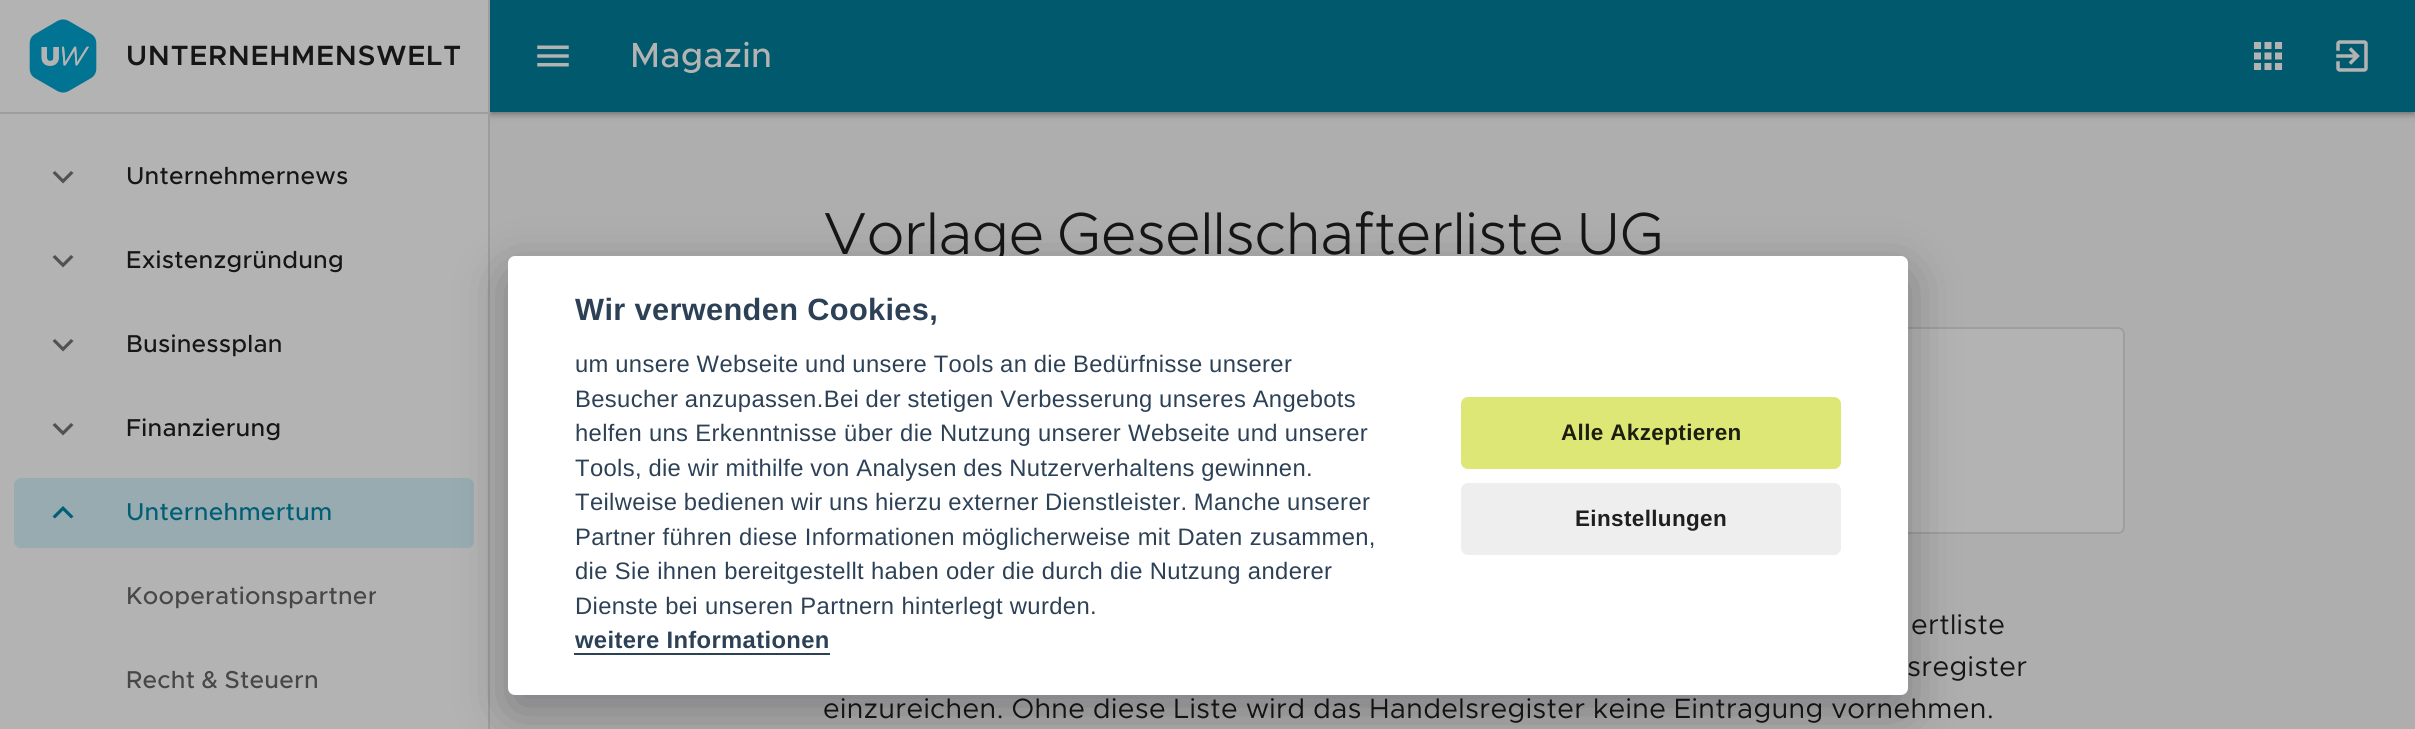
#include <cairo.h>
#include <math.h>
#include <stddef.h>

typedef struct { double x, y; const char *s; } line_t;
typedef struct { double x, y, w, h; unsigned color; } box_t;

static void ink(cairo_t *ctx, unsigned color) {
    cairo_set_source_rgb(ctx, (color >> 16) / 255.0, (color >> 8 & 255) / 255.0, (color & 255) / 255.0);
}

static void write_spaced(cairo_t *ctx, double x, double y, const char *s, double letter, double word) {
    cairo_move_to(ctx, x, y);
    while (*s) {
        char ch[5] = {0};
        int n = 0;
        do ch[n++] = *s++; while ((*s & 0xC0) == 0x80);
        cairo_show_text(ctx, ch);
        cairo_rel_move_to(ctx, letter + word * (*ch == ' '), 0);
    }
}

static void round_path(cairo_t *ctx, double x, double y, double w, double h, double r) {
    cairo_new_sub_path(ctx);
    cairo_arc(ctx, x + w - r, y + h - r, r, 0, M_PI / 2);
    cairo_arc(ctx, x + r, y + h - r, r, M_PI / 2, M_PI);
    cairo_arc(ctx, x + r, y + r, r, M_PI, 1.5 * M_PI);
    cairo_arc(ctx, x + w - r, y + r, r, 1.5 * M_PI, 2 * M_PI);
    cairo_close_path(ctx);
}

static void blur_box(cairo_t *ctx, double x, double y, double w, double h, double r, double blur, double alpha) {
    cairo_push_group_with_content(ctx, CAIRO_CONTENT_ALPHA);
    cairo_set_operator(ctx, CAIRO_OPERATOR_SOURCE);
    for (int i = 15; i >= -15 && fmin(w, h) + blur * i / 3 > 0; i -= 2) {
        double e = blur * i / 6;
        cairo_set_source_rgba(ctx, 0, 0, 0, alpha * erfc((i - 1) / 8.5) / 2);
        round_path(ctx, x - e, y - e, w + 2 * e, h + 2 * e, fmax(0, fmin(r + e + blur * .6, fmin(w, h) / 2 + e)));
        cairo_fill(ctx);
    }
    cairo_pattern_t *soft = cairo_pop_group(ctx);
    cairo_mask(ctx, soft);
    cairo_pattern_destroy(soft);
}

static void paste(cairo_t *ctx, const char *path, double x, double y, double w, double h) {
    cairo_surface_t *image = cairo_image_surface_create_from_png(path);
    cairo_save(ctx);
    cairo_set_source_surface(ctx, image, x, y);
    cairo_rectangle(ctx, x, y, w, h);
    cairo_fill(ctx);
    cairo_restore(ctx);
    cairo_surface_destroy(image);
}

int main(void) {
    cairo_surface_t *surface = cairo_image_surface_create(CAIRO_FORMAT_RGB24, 2415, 729);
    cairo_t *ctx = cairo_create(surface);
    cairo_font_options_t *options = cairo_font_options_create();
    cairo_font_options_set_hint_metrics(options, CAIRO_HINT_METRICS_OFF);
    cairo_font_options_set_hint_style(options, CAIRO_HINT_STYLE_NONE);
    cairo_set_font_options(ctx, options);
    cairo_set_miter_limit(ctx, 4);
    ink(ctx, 0xAEAEAF);
    cairo_paint(ctx);
    ink(ctx, 0x000000);
    blur_box(ctx, 492, 4, 1921, 108, 0, 2, 0.2);
    blur_box(ctx, 490, 2, 1925, 112, 0, 4.5, 0.12);
    blur_box(ctx, 490, 4, 1925, 112, 0, 2.5, 0.14);
    {
        static const box_t items[] = {
            {0, 0, 488, 729, 0xB3B3B3},
            {488, 0, 2, 729, 0x9D9D9D},
            {0, 112, 488, 2, 0x9D9D9D},
        };
        for (size_t i = 0; i < sizeof items / sizeof *items; i++) {
            ink(ctx, items[i].color);
            cairo_rectangle(ctx, items[i].x, items[i].y, items[i].w, items[i].h);
            cairo_fill(ctx);
        }
    }
    paste(ctx, "media/1.png", 29, 19, 68, 74);
    paste(ctx, "media/2.png", 41, 46, 48, 20);
    cairo_select_font_face(ctx, "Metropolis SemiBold", CAIRO_FONT_SLANT_NORMAL, CAIRO_FONT_WEIGHT_NORMAL);
    cairo_set_font_size(ctx, 28);
    ink(ctx, 0x161617);
    write_spaced(ctx, 126, 65, "UNTERNEHMENSWELT", 1, 0);
    ink(ctx, 0x525252);
    cairo_new_path(ctx);
    cairo_move_to(ctx, 71, 171);
    cairo_line_to(ctx, 63, 179);
    cairo_line_to(ctx, 55, 171);
    cairo_line_to(ctx, 52.5, 173);
    cairo_line_to(ctx, 63, 183.5);
    cairo_line_to(ctx, 73.5, 173);
    cairo_close_path(ctx);
    cairo_fill(ctx);
    cairo_select_font_face(ctx, "Metropolis Medium", CAIRO_FONT_SLANT_NORMAL, CAIRO_FONT_WEIGHT_NORMAL);
    cairo_set_font_size(ctx, 24.5);
    ink(ctx, 0x161617);
    write_spaced(ctx, 126, 184, "Unternehmernews", 0.25, 0);
    ink(ctx, 0x525252);
    cairo_new_path(ctx);
    cairo_move_to(ctx, 71, 255);
    cairo_line_to(ctx, 63, 263);
    cairo_line_to(ctx, 55, 255);
    cairo_line_to(ctx, 52.5, 257);
    cairo_line_to(ctx, 63, 267.5);
    cairo_line_to(ctx, 73.5, 257);
    cairo_close_path(ctx);
    cairo_fill(ctx);
    ink(ctx, 0x161617);
    write_spaced(ctx, 126, 268, "Existenzgründung", 0.25, 0);
    ink(ctx, 0x525252);
    cairo_new_path(ctx);
    cairo_move_to(ctx, 71, 339);
    cairo_line_to(ctx, 63, 347);
    cairo_line_to(ctx, 55, 339);
    cairo_line_to(ctx, 52.5, 341);
    cairo_line_to(ctx, 63, 351.5);
    cairo_line_to(ctx, 73.5, 341);
    cairo_close_path(ctx);
    cairo_fill(ctx);
    ink(ctx, 0x161617);
    write_spaced(ctx, 126, 352, "Businessplan", 0.25, 0);
    ink(ctx, 0x525252);
    cairo_new_path(ctx);
    cairo_move_to(ctx, 71, 423);
    cairo_line_to(ctx, 63, 431);
    cairo_line_to(ctx, 55, 423);
    cairo_line_to(ctx, 52.5, 425);
    cairo_line_to(ctx, 63, 435.5);
    cairo_line_to(ctx, 73.5, 425);
    cairo_close_path(ctx);
    cairo_fill(ctx);
    ink(ctx, 0x161617);
    write_spaced(ctx, 126, 436, "Finanzierung", 0.25, 0);
    ink(ctx, 0x00596D);
    cairo_new_path(ctx);
    cairo_move_to(ctx, 55, 518.5);
    cairo_line_to(ctx, 63, 510.5);
    cairo_line_to(ctx, 71, 518.5);
    cairo_line_to(ctx, 73.5, 516.5);
    cairo_line_to(ctx, 63, 506);
    cairo_line_to(ctx, 52.5, 516.5);
    cairo_close_path(ctx);
    cairo_fill(ctx);
    write_spaced(ctx, 126, 520, "Unternehmertum", 0.25, 0);
    cairo_set_source_rgba(ctx, 0.031, 0.498, 0.627, 0.16);
    round_path(ctx, 14, 478, 460, 70, 7);
    cairo_fill(ctx);
    cairo_save(ctx);
    cairo_rectangle(ctx, 126, 579, 250, 35);
    cairo_clip(ctx);
    ink(ctx, 0x474747);
    write_spaced(ctx, 126, 604, "Kooperationspartner", 0.25, 0);
    cairo_restore(ctx);
    ink(ctx, 0x474747);
    write_spaced(ctx, 126, 688, "Recht & Steuern", 0.25, -1);
    ink(ctx, 0x00596D);
    cairo_rectangle(ctx, 490, 0, 1925, 112);
    cairo_fill(ctx);
    paste(ctx, "media/3.png", 537, 45, 32, 22);
    cairo_set_font_size(ctx, 35);
    ink(ctx, 0xB3B3B3);
    write_spaced(ctx, 630, 67, "Magazin", 0.25, 0);
    paste(ctx, "media/4.png", 2253, 41, 30, 30);
    paste(ctx, "media/5.png", 2336, 40, 32, 32);
    cairo_select_font_face(ctx, "Metropolis Light", CAIRO_FONT_SLANT_NORMAL, CAIRO_FONT_WEIGHT_NORMAL);
    cairo_set_font_size(ctx, 59.5);
    ink(ctx, 0x161617);
    write_spaced(ctx, 823, 254, "Vorlage Gesellschafterliste UG", -0.25, -4);
    ink(ctx, 0xB3B3B3);
    round_path(ctx, 781, 327, 1344, 207, 7);
    cairo_fill(ctx);
    round_path(ctx, 782, 328, 1342, 205, 6);
    cairo_set_source_rgba(ctx, 0, 0, 0, 0.12);
    cairo_stroke(ctx);
    cairo_select_font_face(ctx, "Metropolis", CAIRO_FONT_SLANT_NORMAL, CAIRO_FONT_WEIGHT_NORMAL);
    cairo_set_font_size(ctx, 28);
    ink(ctx, 0x161617);
    write_spaced(ctx, 1911, 634, "ertliste", 0.35, 0);
    write_spaced(ctx, 1907, 676, "sregister", 0.35, -1);
    write_spaced(ctx, 823, 718, "einzureichen. Ohne diese Liste wird das Handelsregister keine Eintragung vornehmen.", 0.35, -0.9);
    ink(ctx, 0x020203);
    blur_box(ctx, 508, 273, 1400, 439, 7, 26, 0.28);
    ink(ctx, 0xFFFFFF);
    round_path(ctx, 508, 256, 1400, 439, 7);
    cairo_fill(ctx);
    cairo_select_font_face(ctx, "Liberation Sans", CAIRO_FONT_SLANT_NORMAL, CAIRO_FONT_WEIGHT_BOLD);
    cairo_set_font_size(ctx, 30.75);
    ink(ctx, 0x2D4156);
    write_spaced(ctx, 575, 320, "Wir verwenden Cookies,", 0.35, 0);
    cairo_select_font_face(ctx, "Liberation Sans", CAIRO_FONT_SLANT_NORMAL, CAIRO_FONT_WEIGHT_NORMAL);
    cairo_set_font_size(ctx, 23.8);
    write_spaced(ctx, 575, 372, "um unsere Webseite und unsere Tools an die Bedürfnisse unserer", 0.35, -0.5);
    write_spaced(ctx, 575, 407, "Besucher anzupassen.Bei der stetigen Verbesserung unseres Angebots", 0.35, -0.5);
    write_spaced(ctx, 575, 441, "helfen uns Erkenntnisse über die Nutzung unserer Webseite und unserer", 0.35, 0);
    write_spaced(ctx, 575, 476, "Tools, die wir mithilfe von Analysen des Nutzerverhaltens gewinnen.", 0.35, -0.5);
    write_spaced(ctx, 575, 510, "Teilweise bedienen wir uns hierzu externer Dienstleister. Manche unserer", 0.35, -0.5);
    {
        static const line_t items[] = {
            {575, 545, "Partner führen diese Informationen möglicherweise mit Daten zusammen,"},
            {575, 579, "die Sie ihnen bereitgestellt haben oder die durch die Nutzung anderer"},
            {575, 614, "Dienste bei unseren Partnern hinterlegt wurden."},
        };
        for (size_t i = 0; i < sizeof items / sizeof *items; i++) {
            write_spaced(ctx, items[i].x, items[i].y, items[i].s, 0.35, 0);
        }
    }
    cairo_select_font_face(ctx, "Liberation Sans", CAIRO_FONT_SLANT_NORMAL, CAIRO_FONT_WEIGHT_BOLD);
    write_spaced(ctx, 575, 648, "weitere Informationen", 0.35, 0);
    cairo_rectangle(ctx, 574, 653, 256, 2);
    cairo_fill(ctx);
    ink(ctx, 0xDCE775);
    round_path(ctx, 1461, 397, 380, 72, 7);
    cairo_fill(ctx);
    cairo_set_font_size(ctx, 22.5);
    ink(ctx, 0x1D1E0F);
    write_spaced(ctx, 1561, 440, "Alle Akzeptieren", 0.35, 0);
    ink(ctx, 0xEEEEEE);
    round_path(ctx, 1461, 483, 380, 72, 7);
    cairo_fill(ctx);
    ink(ctx, 0x1F1F1F);
    write_spaced(ctx, 1575, 526, "Einstellungen", 0.35, 0);
    cairo_surface_write_to_png(surface, "image.png");
    cairo_font_options_destroy(options);
    cairo_destroy(ctx);
    cairo_surface_destroy(surface);
    return 0;
}
